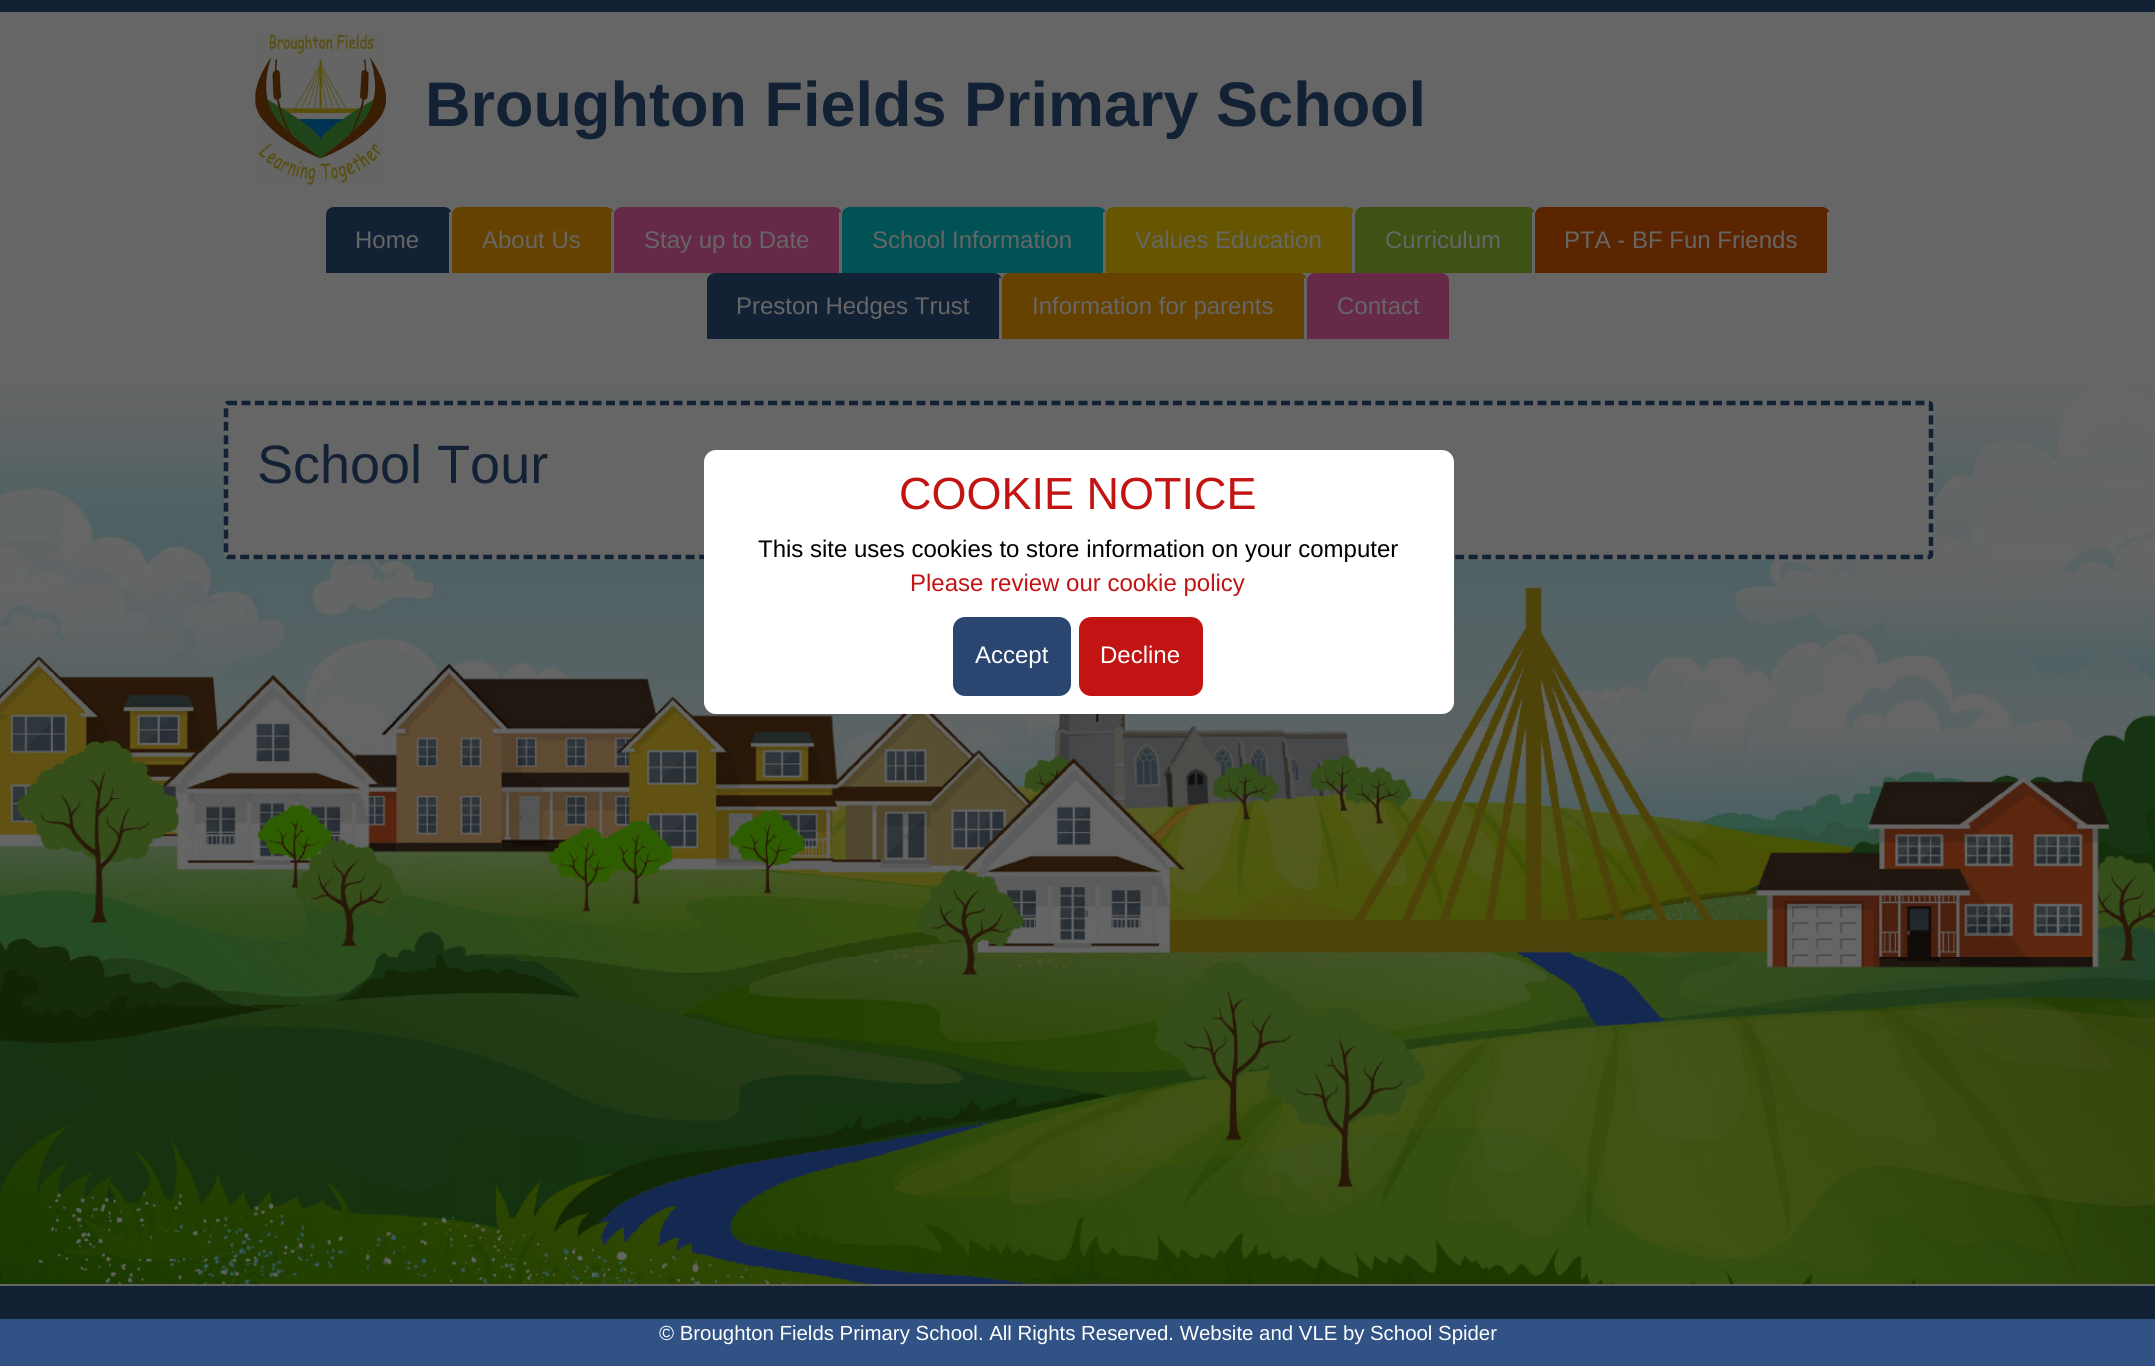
#include <cairo.h>
#include <math.h>
#include <stddef.h>


static void ink(cairo_t *ctx, unsigned color) {
    cairo_set_source_rgb(ctx, (color >> 16) / 255.0, (color >> 8 & 255) / 255.0, (color & 255) / 255.0);
}

static void round_path(cairo_t *ctx, double x, double y, double w, double h, double r) {
    cairo_new_sub_path(ctx);
    cairo_arc(ctx, x + w - r, y + h - r, r, 0, M_PI / 2);
    cairo_arc(ctx, x + r, y + h - r, r, M_PI / 2, M_PI);
    cairo_arc(ctx, x + r, y + r, r, M_PI, 1.5 * M_PI);
    cairo_arc(ctx, x + w - r, y + r, r, 1.5 * M_PI, 2 * M_PI);
    cairo_close_path(ctx);
}

static void paste(cairo_t *ctx, const char *path, double x, double y, double w, double h) {
    cairo_surface_t *image = cairo_image_surface_create_from_png(path);
    cairo_save(ctx);
    cairo_set_source_surface(ctx, image, x, y);
    cairo_rectangle(ctx, x, y, w, h);
    cairo_fill(ctx);
    cairo_restore(ctx);
    cairo_surface_destroy(image);
}

int main(void) {
    cairo_surface_t *surface = cairo_image_surface_create(CAIRO_FORMAT_RGB24, 2155, 1366);
    cairo_t *ctx = cairo_create(surface);
    cairo_font_options_t *options = cairo_font_options_create();
    cairo_font_options_set_hint_metrics(options, CAIRO_HINT_METRICS_OFF);
    cairo_font_options_set_hint_style(options, CAIRO_HINT_STYLE_NONE);
    cairo_set_font_options(ctx, options);
    cairo_set_miter_limit(ctx, 4);
    ink(ctx, 0x666666);
    cairo_paint(ctx);
    ink(ctx, 0x132135);
    cairo_rectangle(ctx, 0, 0, 2155, 12);
    cairo_fill(ctx);
    paste(ctx, "media/1.png", 0, 387, 2155, 897);
    paste(ctx, "media/2.png", 255, 34, 131, 151);
    cairo_select_font_face(ctx, "Liberation Sans", CAIRO_FONT_SLANT_NORMAL, CAIRO_FONT_WEIGHT_BOLD);
    cairo_set_font_size(ctx, 63);
    cairo_move_to(ctx, 425, 126);
    cairo_show_text(ctx, "Broughton Fields Primary School");
    cairo_new_path(ctx);
    cairo_move_to(ctx, 334, 207);
    cairo_line_to(ctx, 444, 207);
    cairo_curve_to(ctx, 448.5, 207, 452, 210.5, 452, 215);
    cairo_line_to(ctx, 452, 273);
    cairo_line_to(ctx, 326, 273);
    cairo_line_to(ctx, 326, 215);
    cairo_curve_to(ctx, 326, 210.5, 329.5, 207, 334, 207);
    cairo_close_path(ctx);
    cairo_fill(ctx);
    ink(ctx, 0x666666);
    cairo_rectangle(ctx, 449, 212, 3, 61);
    cairo_fill(ctx);
    cairo_select_font_face(ctx, "Liberation Sans", CAIRO_FONT_SLANT_NORMAL, CAIRO_FONT_WEIGHT_NORMAL);
    cairo_set_font_size(ctx, 24);
    cairo_move_to(ctx, 355, 248);
    cairo_show_text(ctx, "Home");
    ink(ctx, 0x664200);
    cairo_new_path(ctx);
    cairo_move_to(ctx, 460, 207);
    cairo_line_to(ctx, 606, 207);
    cairo_curve_to(ctx, 610.5, 207, 614, 210.5, 614, 215);
    cairo_line_to(ctx, 614, 273);
    cairo_line_to(ctx, 452, 273);
    cairo_line_to(ctx, 452, 215);
    cairo_curve_to(ctx, 452, 210.5, 455.5, 207, 460, 207);
    cairo_close_path(ctx);
    cairo_fill(ctx);
    ink(ctx, 0x666666);
    cairo_rectangle(ctx, 611, 212, 3, 61);
    cairo_fill(ctx);
    cairo_move_to(ctx, 482, 248);
    cairo_show_text(ctx, "About Us");
    ink(ctx, 0x662A48);
    cairo_new_path(ctx);
    cairo_move_to(ctx, 622, 207);
    cairo_line_to(ctx, 834, 207);
    cairo_curve_to(ctx, 838.5, 207, 842, 210.5, 842, 215);
    cairo_line_to(ctx, 842, 273);
    cairo_line_to(ctx, 614, 273);
    cairo_line_to(ctx, 614, 215);
    cairo_curve_to(ctx, 614, 210.5, 617.5, 207, 622, 207);
    cairo_close_path(ctx);
    cairo_fill(ctx);
    ink(ctx, 0x666666);
    cairo_rectangle(ctx, 839, 212, 3, 61);
    cairo_fill(ctx);
    cairo_move_to(ctx, 644, 248);
    cairo_show_text(ctx, "Stay up to Date");
    ink(ctx, 0x005254);
    cairo_new_path(ctx);
    cairo_move_to(ctx, 850, 207);
    cairo_line_to(ctx, 1098, 207);
    cairo_curve_to(ctx, 1102.5, 207, 1106, 210.5, 1106, 215);
    cairo_line_to(ctx, 1106, 273);
    cairo_line_to(ctx, 842, 273);
    cairo_line_to(ctx, 842, 215);
    cairo_curve_to(ctx, 842, 210.5, 845.5, 207, 850, 207);
    cairo_close_path(ctx);
    cairo_fill(ctx);
    ink(ctx, 0x666666);
    cairo_rectangle(ctx, 1103, 212, 3, 61);
    cairo_fill(ctx);
    cairo_move_to(ctx, 872, 248);
    cairo_show_text(ctx, "School Information");
    ink(ctx, 0x665600);
    cairo_new_path(ctx);
    cairo_move_to(ctx, 1114, 207);
    cairo_line_to(ctx, 1347, 207);
    cairo_curve_to(ctx, 1351.5, 207, 1355, 210.5, 1355, 215);
    cairo_line_to(ctx, 1355, 273);
    cairo_line_to(ctx, 1106, 273);
    cairo_line_to(ctx, 1106, 215);
    cairo_curve_to(ctx, 1106, 210.5, 1109.5, 207, 1114, 207);
    cairo_close_path(ctx);
    cairo_fill(ctx);
    ink(ctx, 0x666666);
    cairo_rectangle(ctx, 1352, 212, 3, 61);
    cairo_fill(ctx);
    cairo_move_to(ctx, 1135, 248);
    cairo_show_text(ctx, "Values Education");
    ink(ctx, 0x3E5214);
    cairo_new_path(ctx);
    cairo_move_to(ctx, 1363, 207);
    cairo_line_to(ctx, 1527, 207);
    cairo_curve_to(ctx, 1531.5, 207, 1535, 210.5, 1535, 215);
    cairo_line_to(ctx, 1535, 273);
    cairo_line_to(ctx, 1355, 273);
    cairo_line_to(ctx, 1355, 215);
    cairo_curve_to(ctx, 1355, 210.5, 1358.5, 207, 1363, 207);
    cairo_close_path(ctx);
    cairo_fill(ctx);
    ink(ctx, 0x666666);
    cairo_rectangle(ctx, 1532, 212, 3, 61);
    cairo_fill(ctx);
    cairo_move_to(ctx, 1385, 248);
    cairo_show_text(ctx, "Curriculum");
    ink(ctx, 0x5A2500);
    cairo_new_path(ctx);
    cairo_move_to(ctx, 1543, 207);
    cairo_line_to(ctx, 1822, 207);
    cairo_curve_to(ctx, 1826.5, 207, 1830, 210.5, 1830, 215);
    cairo_line_to(ctx, 1830, 273);
    cairo_line_to(ctx, 1535, 273);
    cairo_line_to(ctx, 1535, 215);
    cairo_curve_to(ctx, 1535, 210.5, 1538.5, 207, 1543, 207);
    cairo_close_path(ctx);
    cairo_fill(ctx);
    ink(ctx, 0x666666);
    cairo_rectangle(ctx, 1827, 212, 3, 61);
    cairo_fill(ctx);
    cairo_move_to(ctx, 1564, 248);
    cairo_show_text(ctx, "PTA - BF Fun Friends");
    ink(ctx, 0x132135);
    cairo_new_path(ctx);
    cairo_move_to(ctx, 715, 273);
    cairo_line_to(ctx, 994, 273);
    cairo_curve_to(ctx, 998.5, 273, 1002, 276.5, 1002, 281);
    cairo_line_to(ctx, 1002, 339);
    cairo_line_to(ctx, 707, 339);
    cairo_line_to(ctx, 707, 281);
    cairo_curve_to(ctx, 707, 276.5, 710.5, 273, 715, 273);
    cairo_close_path(ctx);
    cairo_fill(ctx);
    ink(ctx, 0x666666);
    cairo_rectangle(ctx, 999, 278, 3, 61);
    cairo_fill(ctx);
    cairo_move_to(ctx, 736, 314);
    cairo_show_text(ctx, "Preston Hedges Trust");
    ink(ctx, 0x664200);
    cairo_new_path(ctx);
    cairo_move_to(ctx, 1010, 273);
    cairo_line_to(ctx, 1299, 273);
    cairo_curve_to(ctx, 1303.5, 273, 1307, 276.5, 1307, 281);
    cairo_line_to(ctx, 1307, 339);
    cairo_line_to(ctx, 1002, 339);
    cairo_line_to(ctx, 1002, 281);
    cairo_curve_to(ctx, 1002, 276.5, 1005.5, 273, 1010, 273);
    cairo_close_path(ctx);
    cairo_fill(ctx);
    ink(ctx, 0x666666);
    cairo_rectangle(ctx, 1304, 278, 3, 61);
    cairo_fill(ctx);
    cairo_move_to(ctx, 1032, 314);
    cairo_show_text(ctx, "Information for parents");
    ink(ctx, 0x662A48);
    cairo_new_path(ctx);
    cairo_move_to(ctx, 1315, 273);
    cairo_line_to(ctx, 1441, 273);
    cairo_curve_to(ctx, 1445.5, 273, 1449, 276.5, 1449, 281);
    cairo_line_to(ctx, 1449, 339);
    cairo_line_to(ctx, 1307, 339);
    cairo_line_to(ctx, 1307, 281);
    cairo_curve_to(ctx, 1307, 276.5, 1310.5, 273, 1315, 273);
    cairo_close_path(ctx);
    cairo_fill(ctx);
    ink(ctx, 0x666666);
    cairo_move_to(ctx, 1337, 314);
    cairo_show_text(ctx, "Contact");
    round_path(ctx, 224, 401, 1710, 159, 5);
    cairo_fill(ctx);
    cairo_new_path(ctx);
    cairo_move_to(ctx, 228, 403);
    cairo_line_to(ctx, 1929, 403);
    cairo_curve_to(ctx, 1930, 403, 1931, 404, 1931, 405);
    cairo_line_to(ctx, 1931, 555);
    cairo_curve_to(ctx, 1931, 556, 1930, 557, 1929, 557);
    cairo_line_to(ctx, 228, 557);
    cairo_curve_to(ctx, 227, 557, 226, 556, 226, 555);
    cairo_line_to(ctx, 226, 405);
    cairo_curve_to(ctx, 226, 404, 227, 403, 228, 403);
    cairo_close_path(ctx);
    ink(ctx, 0x132135);
    cairo_set_line_width(ctx, 4.5);
    cairo_set_dash(ctx, (double[]){9, 4.5}, 2, 0);
    cairo_stroke(ctx);
    cairo_set_font_size(ctx, 54);
    cairo_move_to(ctx, 257, 483);
    cairo_show_text(ctx, "School Tour");
    ink(ctx, 0xFFFFFF);
    round_path(ctx, 705.5, 451.5, 747, 261, 10.5);
    cairo_fill_preserve(ctx);
    cairo_set_line_width(ctx, 3);
    cairo_set_dash(ctx, NULL, 0, 0);
    cairo_stroke(ctx);
    cairo_set_font_size(ctx, 45);
    ink(ctx, 0xC31414);
    cairo_move_to(ctx, 899, 509);
    cairo_show_text(ctx, "COOKIE NOTICE");
    cairo_set_font_size(ctx, 24);
    ink(ctx, 0x000000);
    cairo_move_to(ctx, 758, 557);
    cairo_show_text(ctx, "This site uses cookies to store information on your computer");
    ink(ctx, 0xC31414);
    cairo_move_to(ctx, 910, 591);
    cairo_show_text(ctx, "Please review our cookie policy");
    ink(ctx, 0x294570);
    round_path(ctx, 953, 617, 118, 79, 12);
    cairo_fill(ctx);
    ink(ctx, 0xFFFFFF);
    cairo_move_to(ctx, 975, 663);
    cairo_show_text(ctx, "Accept");
    ink(ctx, 0xC31414);
    round_path(ctx, 1079, 617, 124, 79, 12);
    cairo_fill(ctx);
    ink(ctx, 0xFFFFFF);
    cairo_move_to(ctx, 1100, 663);
    cairo_show_text(ctx, "Decline");
    ink(ctx, 0x305285);
    cairo_rectangle(ctx, 0, 1319, 2155, 47);
    cairo_fill(ctx);
    ink(ctx, 0x132135);
    cairo_rectangle(ctx, 0, 1286, 2155, 33);
    cairo_fill(ctx);
    cairo_set_font_size(ctx, 20.4);
    ink(ctx, 0xFFFFFF);
    cairo_move_to(ctx, 659, 1340);
    cairo_show_text(ctx, "© Broughton Fields Primary School. All Rights Reserved. Website and VLE by");
    cairo_move_to(ctx, 1370, 1340);
    cairo_show_text(ctx, "School Spider");
    cairo_surface_write_to_png(surface, "image.png");
    cairo_font_options_destroy(options);
    cairo_destroy(ctx);
    cairo_surface_destroy(surface);
    return 0;
}
